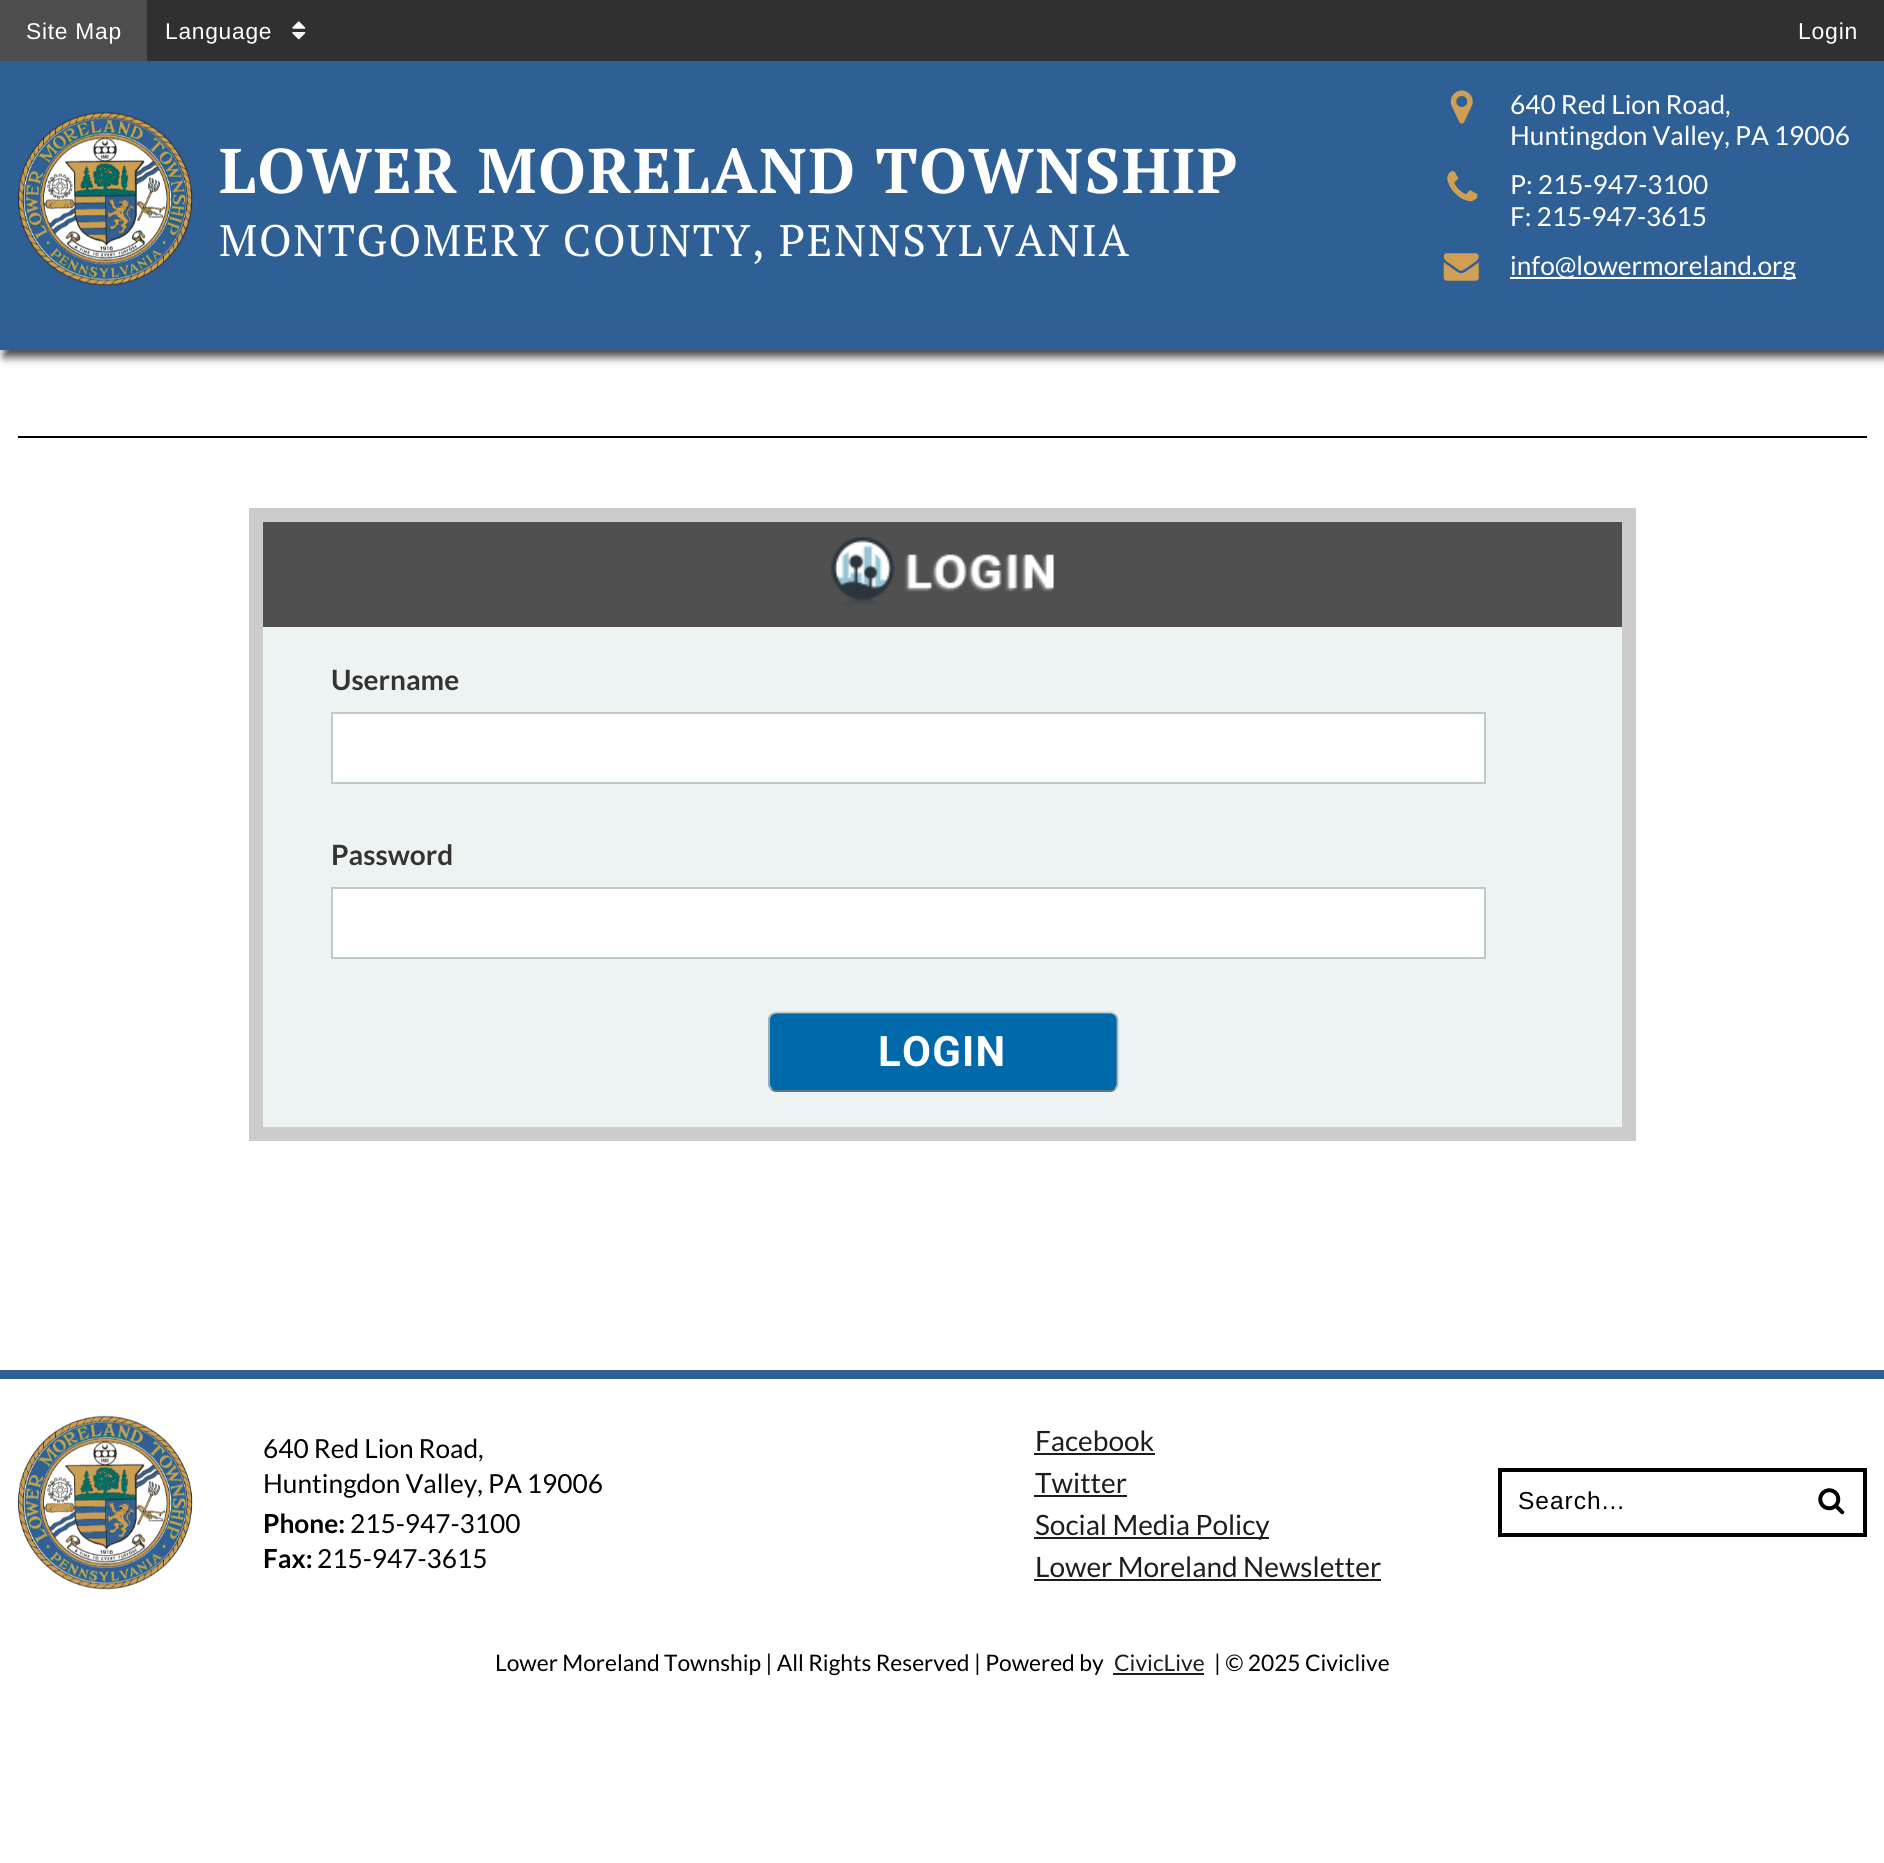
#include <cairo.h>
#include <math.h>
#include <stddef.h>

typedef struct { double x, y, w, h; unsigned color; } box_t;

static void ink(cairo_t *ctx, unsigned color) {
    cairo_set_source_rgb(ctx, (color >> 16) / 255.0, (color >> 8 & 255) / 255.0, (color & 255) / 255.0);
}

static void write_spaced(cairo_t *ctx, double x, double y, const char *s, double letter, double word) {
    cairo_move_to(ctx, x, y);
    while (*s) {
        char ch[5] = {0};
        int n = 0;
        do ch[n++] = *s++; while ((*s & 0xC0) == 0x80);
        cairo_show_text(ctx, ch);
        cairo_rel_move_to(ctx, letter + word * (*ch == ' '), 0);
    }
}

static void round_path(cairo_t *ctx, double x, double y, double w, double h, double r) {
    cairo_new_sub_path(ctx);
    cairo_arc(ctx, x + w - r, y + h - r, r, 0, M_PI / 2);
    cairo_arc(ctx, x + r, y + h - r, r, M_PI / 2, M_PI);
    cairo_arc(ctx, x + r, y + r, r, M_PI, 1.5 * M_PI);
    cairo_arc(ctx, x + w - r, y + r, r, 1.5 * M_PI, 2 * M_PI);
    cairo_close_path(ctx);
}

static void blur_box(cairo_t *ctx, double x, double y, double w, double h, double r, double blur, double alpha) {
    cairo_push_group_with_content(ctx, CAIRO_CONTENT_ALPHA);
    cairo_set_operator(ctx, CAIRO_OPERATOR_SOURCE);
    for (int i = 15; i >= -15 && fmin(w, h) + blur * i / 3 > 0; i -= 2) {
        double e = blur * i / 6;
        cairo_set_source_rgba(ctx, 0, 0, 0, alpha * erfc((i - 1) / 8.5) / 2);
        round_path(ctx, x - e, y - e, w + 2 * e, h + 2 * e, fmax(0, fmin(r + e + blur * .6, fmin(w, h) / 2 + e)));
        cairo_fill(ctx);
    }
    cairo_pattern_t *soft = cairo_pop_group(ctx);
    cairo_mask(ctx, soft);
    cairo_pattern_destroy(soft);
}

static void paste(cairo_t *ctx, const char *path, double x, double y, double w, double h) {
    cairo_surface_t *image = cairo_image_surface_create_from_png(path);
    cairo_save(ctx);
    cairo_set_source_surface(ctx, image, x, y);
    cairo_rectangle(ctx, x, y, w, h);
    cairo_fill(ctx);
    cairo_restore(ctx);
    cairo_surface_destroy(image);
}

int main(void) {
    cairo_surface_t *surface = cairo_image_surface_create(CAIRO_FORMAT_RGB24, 1884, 1863);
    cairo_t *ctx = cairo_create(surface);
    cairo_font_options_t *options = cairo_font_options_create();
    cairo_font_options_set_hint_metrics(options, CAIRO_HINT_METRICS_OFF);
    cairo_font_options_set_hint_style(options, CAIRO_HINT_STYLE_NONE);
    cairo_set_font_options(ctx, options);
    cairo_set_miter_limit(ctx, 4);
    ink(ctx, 0xFFFFFF);
    cairo_paint(ctx);
    ink(ctx, 0x303030);
    cairo_rectangle(ctx, 147, 0, 1737, 61);
    cairo_fill(ctx);
    ink(ctx, 0x4D4D4D);
    cairo_rectangle(ctx, 0, 0, 147, 61);
    cairo_fill(ctx);
    cairo_select_font_face(ctx, "Liberation Sans", CAIRO_FONT_SLANT_NORMAL, CAIRO_FONT_WEIGHT_NORMAL);
    cairo_set_font_size(ctx, 22.75);
    ink(ctx, 0xFFFFFF);
    write_spaced(ctx, 26, 39, "Site Map", 0.75, 0);
    write_spaced(ctx, 165, 39, "Language", 0.75, 0);
    paste(ctx, "media/1.png", 292, 21, 14, 19);
    cairo_set_font_size(ctx, 23);
    write_spaced(ctx, 1798, 39, "Login", 0.75, 0);
    ink(ctx, 0x2F6095);
    cairo_rectangle(ctx, 0, 61, 1884, 289);
    cairo_fill(ctx);
    paste(ctx, "media/2.png", 18, 112, 175, 174);
    cairo_select_font_face(ctx, "PT Serif", CAIRO_FONT_SLANT_NORMAL, CAIRO_FONT_WEIGHT_BOLD);
    cairo_set_font_size(ctx, 63);
    ink(ctx, 0xFFFFFF);
    write_spaced(ctx, 219, 193, "LOWER MORELAND TOWNSHIP", 1.75, 0);
    cairo_select_font_face(ctx, "PT Serif", CAIRO_FONT_SLANT_NORMAL, CAIRO_FONT_WEIGHT_NORMAL);
    cairo_set_font_size(ctx, 44.1);
    write_spaced(ctx, 219, 256, "MONTGOMERY COUNTY, PENNSYLVANIA", 1.75, 0);
    paste(ctx, "media/3.png", 1450, 90, 23, 34);
    cairo_select_font_face(ctx, "Lato", CAIRO_FONT_SLANT_NORMAL, CAIRO_FONT_WEIGHT_NORMAL);
    cairo_set_font_size(ctx, 26.25);
    cairo_move_to(ctx, 1510, 114);
    cairo_show_text(ctx, "640 Red Lion Road,");
    cairo_move_to(ctx, 1510, 145);
    cairo_show_text(ctx, "Huntingdon Valley, PA 19006");
    paste(ctx, "media/4.png", 1447, 171, 31, 31);
    cairo_move_to(ctx, 1510, 194);
    cairo_show_text(ctx, "P: 215-947-3100");
    cairo_move_to(ctx, 1510, 226);
    cairo_show_text(ctx, "F: 215-947-3615");
    paste(ctx, "media/5.png", 1443, 253, 36, 28);
    cairo_rectangle(ctx, 1510, 277, 286, 2);
    cairo_fill(ctx);
    cairo_move_to(ctx, 1510, 275);
    cairo_show_text(ctx, "info@lowermoreland.org");
    cairo_save(ctx);
    cairo_set_fill_rule(ctx, CAIRO_FILL_RULE_EVEN_ODD);
    cairo_new_path(ctx);
    cairo_move_to(ctx, 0, 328);
    cairo_line_to(ctx, 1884, 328);
    cairo_line_to(ctx, 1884, 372);
    cairo_line_to(ctx, 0, 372);
    cairo_close_path(ctx);
    cairo_move_to(ctx, 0, 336);
    cairo_line_to(ctx, 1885, 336);
    cairo_line_to(ctx, 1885, 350);
    cairo_line_to(ctx, 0, 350);
    cairo_close_path(ctx);
    cairo_clip(ctx);
    ink(ctx, 0x333333);
    blur_box(ctx, 4, 343, 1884, 14, 0, 4.5, 0.9);
    cairo_restore(ctx);
    {
        static const box_t items[] = {
            {18, 436, 1849, 2, 0x000000},
            {263, 508, 1359, 14, 0xCCCCCC},
            {1622, 508, 14, 619, 0xCCCCCC},
            {263, 1127, 1373, 14, 0xCCCCCC},
            {249, 508, 14, 633, 0xCCCCCC},
            {263, 627, 1359, 500, 0xEDF3F3},
            {263, 522, 1359, 105, 0x505050},
        };
        for (size_t i = 0; i < sizeof items / sizeof *items; i++) {
            ink(ctx, items[i].color);
            cairo_rectangle(ctx, items[i].x, items[i].y, items[i].w, items[i].h);
            cairo_fill(ctx);
        }
    }
    paste(ctx, "media/6.png", 831, 537, 223, 69);
    cairo_select_font_face(ctx, "Lato", CAIRO_FONT_SLANT_NORMAL, CAIRO_FONT_WEIGHT_BOLD);
    cairo_set_font_size(ctx, 28);
    ink(ctx, 0x333333);
    cairo_move_to(ctx, 331, 690);
    cairo_show_text(ctx, "Username");
    ink(ctx, 0xFFFFFF);
    cairo_rectangle(ctx, 332, 713, 1153, 70);
    cairo_fill_preserve(ctx);
    ink(ctx, 0xBDCACA);
    cairo_stroke(ctx);
    ink(ctx, 0x333333);
    cairo_move_to(ctx, 331, 865);
    cairo_show_text(ctx, "Password");
    ink(ctx, 0xFFFFFF);
    cairo_rectangle(ctx, 332, 888, 1153, 70);
    cairo_fill_preserve(ctx);
    ink(ctx, 0xBDCACA);
    cairo_stroke(ctx);
    ink(ctx, 0x0069AA);
    round_path(ctx, 768, 1012, 350, 80, 9);
    cairo_fill(ctx);
    cairo_new_path(ctx);
    cairo_move_to(ctx, 771.5, 1014.5);
    cairo_curve_to(ctx, 773, 1013, 775, 1012.5, 777, 1012.5);
    cairo_line_to(ctx, 1109.5, 1012.5);
    cairo_curve_to(ctx, 1111.5, 1012.5, 1113.5, 1013, 1115, 1014.5);
    ink(ctx, 0xC4CCCC);
    cairo_set_line_width(ctx, 1.8);
    cairo_stroke(ctx);
    cairo_new_path(ctx);
    cairo_move_to(ctx, 1115, 1014.5);
    cairo_curve_to(ctx, 1116.5, 1016, 1117.5, 1018, 1117.5, 1020);
    cairo_line_to(ctx, 1117.5, 1083);
    cairo_curve_to(ctx, 1117.5, 1085.5, 1116.5, 1087.5, 1115, 1089);
    ink(ctx, 0xACB5B5);
    cairo_stroke(ctx);
    cairo_new_path(ctx);
    cairo_move_to(ctx, 1115, 1089);
    cairo_curve_to(ctx, 1113.5, 1090.5, 1111.5, 1091, 1109.5, 1091);
    cairo_line_to(ctx, 777, 1091);
    cairo_curve_to(ctx, 775, 1091, 773, 1090.5, 771.5, 1089);
    ink(ctx, 0x6F7777);
    cairo_stroke(ctx);
    cairo_new_path(ctx);
    cairo_move_to(ctx, 771.5, 1089);
    cairo_curve_to(ctx, 770, 1087.5, 769, 1085.5, 769, 1083);
    cairo_line_to(ctx, 769, 1020);
    cairo_curve_to(ctx, 769, 1018, 770, 1016, 771.5, 1014.5);
    ink(ctx, 0xACB5B5);
    cairo_stroke(ctx);
    cairo_select_font_face(ctx, "Roboto", CAIRO_FONT_SLANT_NORMAL, CAIRO_FONT_WEIGHT_BOLD);
    cairo_set_font_size(ctx, 42);
    ink(ctx, 0xFFFFFF);
    write_spaced(ctx, 878, 1066, "LOGIN", 1.25, 0);
    ink(ctx, 0x2F6095);
    cairo_rectangle(ctx, 0, 1370, 1884, 9);
    cairo_fill(ctx);
    paste(ctx, "media/7.png", 17, 1415, 176, 175);
    cairo_select_font_face(ctx, "Lato", CAIRO_FONT_SLANT_NORMAL, CAIRO_FONT_WEIGHT_NORMAL);
    cairo_set_font_size(ctx, 26.25);
    ink(ctx, 0x000000);
    cairo_move_to(ctx, 263, 1458);
    cairo_show_text(ctx, "640 Red Lion Road,");
    cairo_move_to(ctx, 263, 1493);
    cairo_show_text(ctx, "Huntingdon Valley, PA 19006");
    cairo_select_font_face(ctx, "Lato", CAIRO_FONT_SLANT_NORMAL, CAIRO_FONT_WEIGHT_BOLD);
    cairo_move_to(ctx, 263, 1533);
    cairo_show_text(ctx, "Phone:");
    cairo_select_font_face(ctx, "Lato", CAIRO_FONT_SLANT_NORMAL, CAIRO_FONT_WEIGHT_NORMAL);
    cairo_move_to(ctx, 350, 1533);
    cairo_show_text(ctx, "215-947-3100");
    cairo_select_font_face(ctx, "Lato", CAIRO_FONT_SLANT_NORMAL, CAIRO_FONT_WEIGHT_BOLD);
    cairo_move_to(ctx, 263, 1568);
    cairo_show_text(ctx, "Fax:");
    cairo_select_font_face(ctx, "Lato", CAIRO_FONT_SLANT_NORMAL, CAIRO_FONT_WEIGHT_NORMAL);
    cairo_move_to(ctx, 317, 1568);
    cairo_show_text(ctx, "215-947-3615");
    cairo_set_font_size(ctx, 28);
    ink(ctx, 0x1D1D1D);
    cairo_move_to(ctx, 1035, 1451);
    cairo_show_text(ctx, "Facebook");
    cairo_rectangle(ctx, 1034, 1453, 121, 2);
    cairo_fill(ctx);
    cairo_move_to(ctx, 1035, 1493);
    cairo_show_text(ctx, "Twitter");
    cairo_rectangle(ctx, 1034, 1495, 93, 2);
    cairo_fill(ctx);
    cairo_rectangle(ctx, 1034, 1537, 235, 2);
    cairo_fill(ctx);
    cairo_move_to(ctx, 1035, 1535);
    cairo_show_text(ctx, "Social Media Policy");
    cairo_move_to(ctx, 1035, 1577);
    cairo_show_text(ctx, "Lower Moreland Newsletter");
    cairo_rectangle(ctx, 1034, 1579, 347, 2);
    cairo_fill(ctx);
    cairo_rectangle(ctx, 1500, 1470, 365, 65);
    ink(ctx, 0x000000);
    cairo_set_line_width(ctx, 4);
    cairo_stroke(ctx);
    cairo_select_font_face(ctx, "Liberation Sans", CAIRO_FONT_SLANT_NORMAL, CAIRO_FONT_WEIGHT_NORMAL);
    cairo_set_font_size(ctx, 24.5);
    write_spaced(ctx, 1518, 1509, "Search...", 1, 0);
    paste(ctx, "media/8.png", 1818, 1488, 27, 27);
    cairo_select_font_face(ctx, "Lato", CAIRO_FONT_SLANT_NORMAL, CAIRO_FONT_WEIGHT_NORMAL);
    cairo_set_font_size(ctx, 22.75);
    cairo_move_to(ctx, 495, 1671);
    cairo_show_text(ctx, "Lower Moreland Township | All Rights Reserved | Powered by");
    ink(ctx, 0x1D1D1D);
    cairo_move_to(ctx, 1114, 1671);
    cairo_show_text(ctx, "CivicLive");
    cairo_rectangle(ctx, 1113, 1673, 91, 2);
    cairo_fill(ctx);
    ink(ctx, 0x000000);
    cairo_move_to(ctx, 1214, 1671);
    cairo_show_text(ctx, "| © 2025 Civiclive");
    cairo_surface_write_to_png(surface, "image.png");
    cairo_font_options_destroy(options);
    cairo_destroy(ctx);
    cairo_surface_destroy(surface);
    return 0;
}
